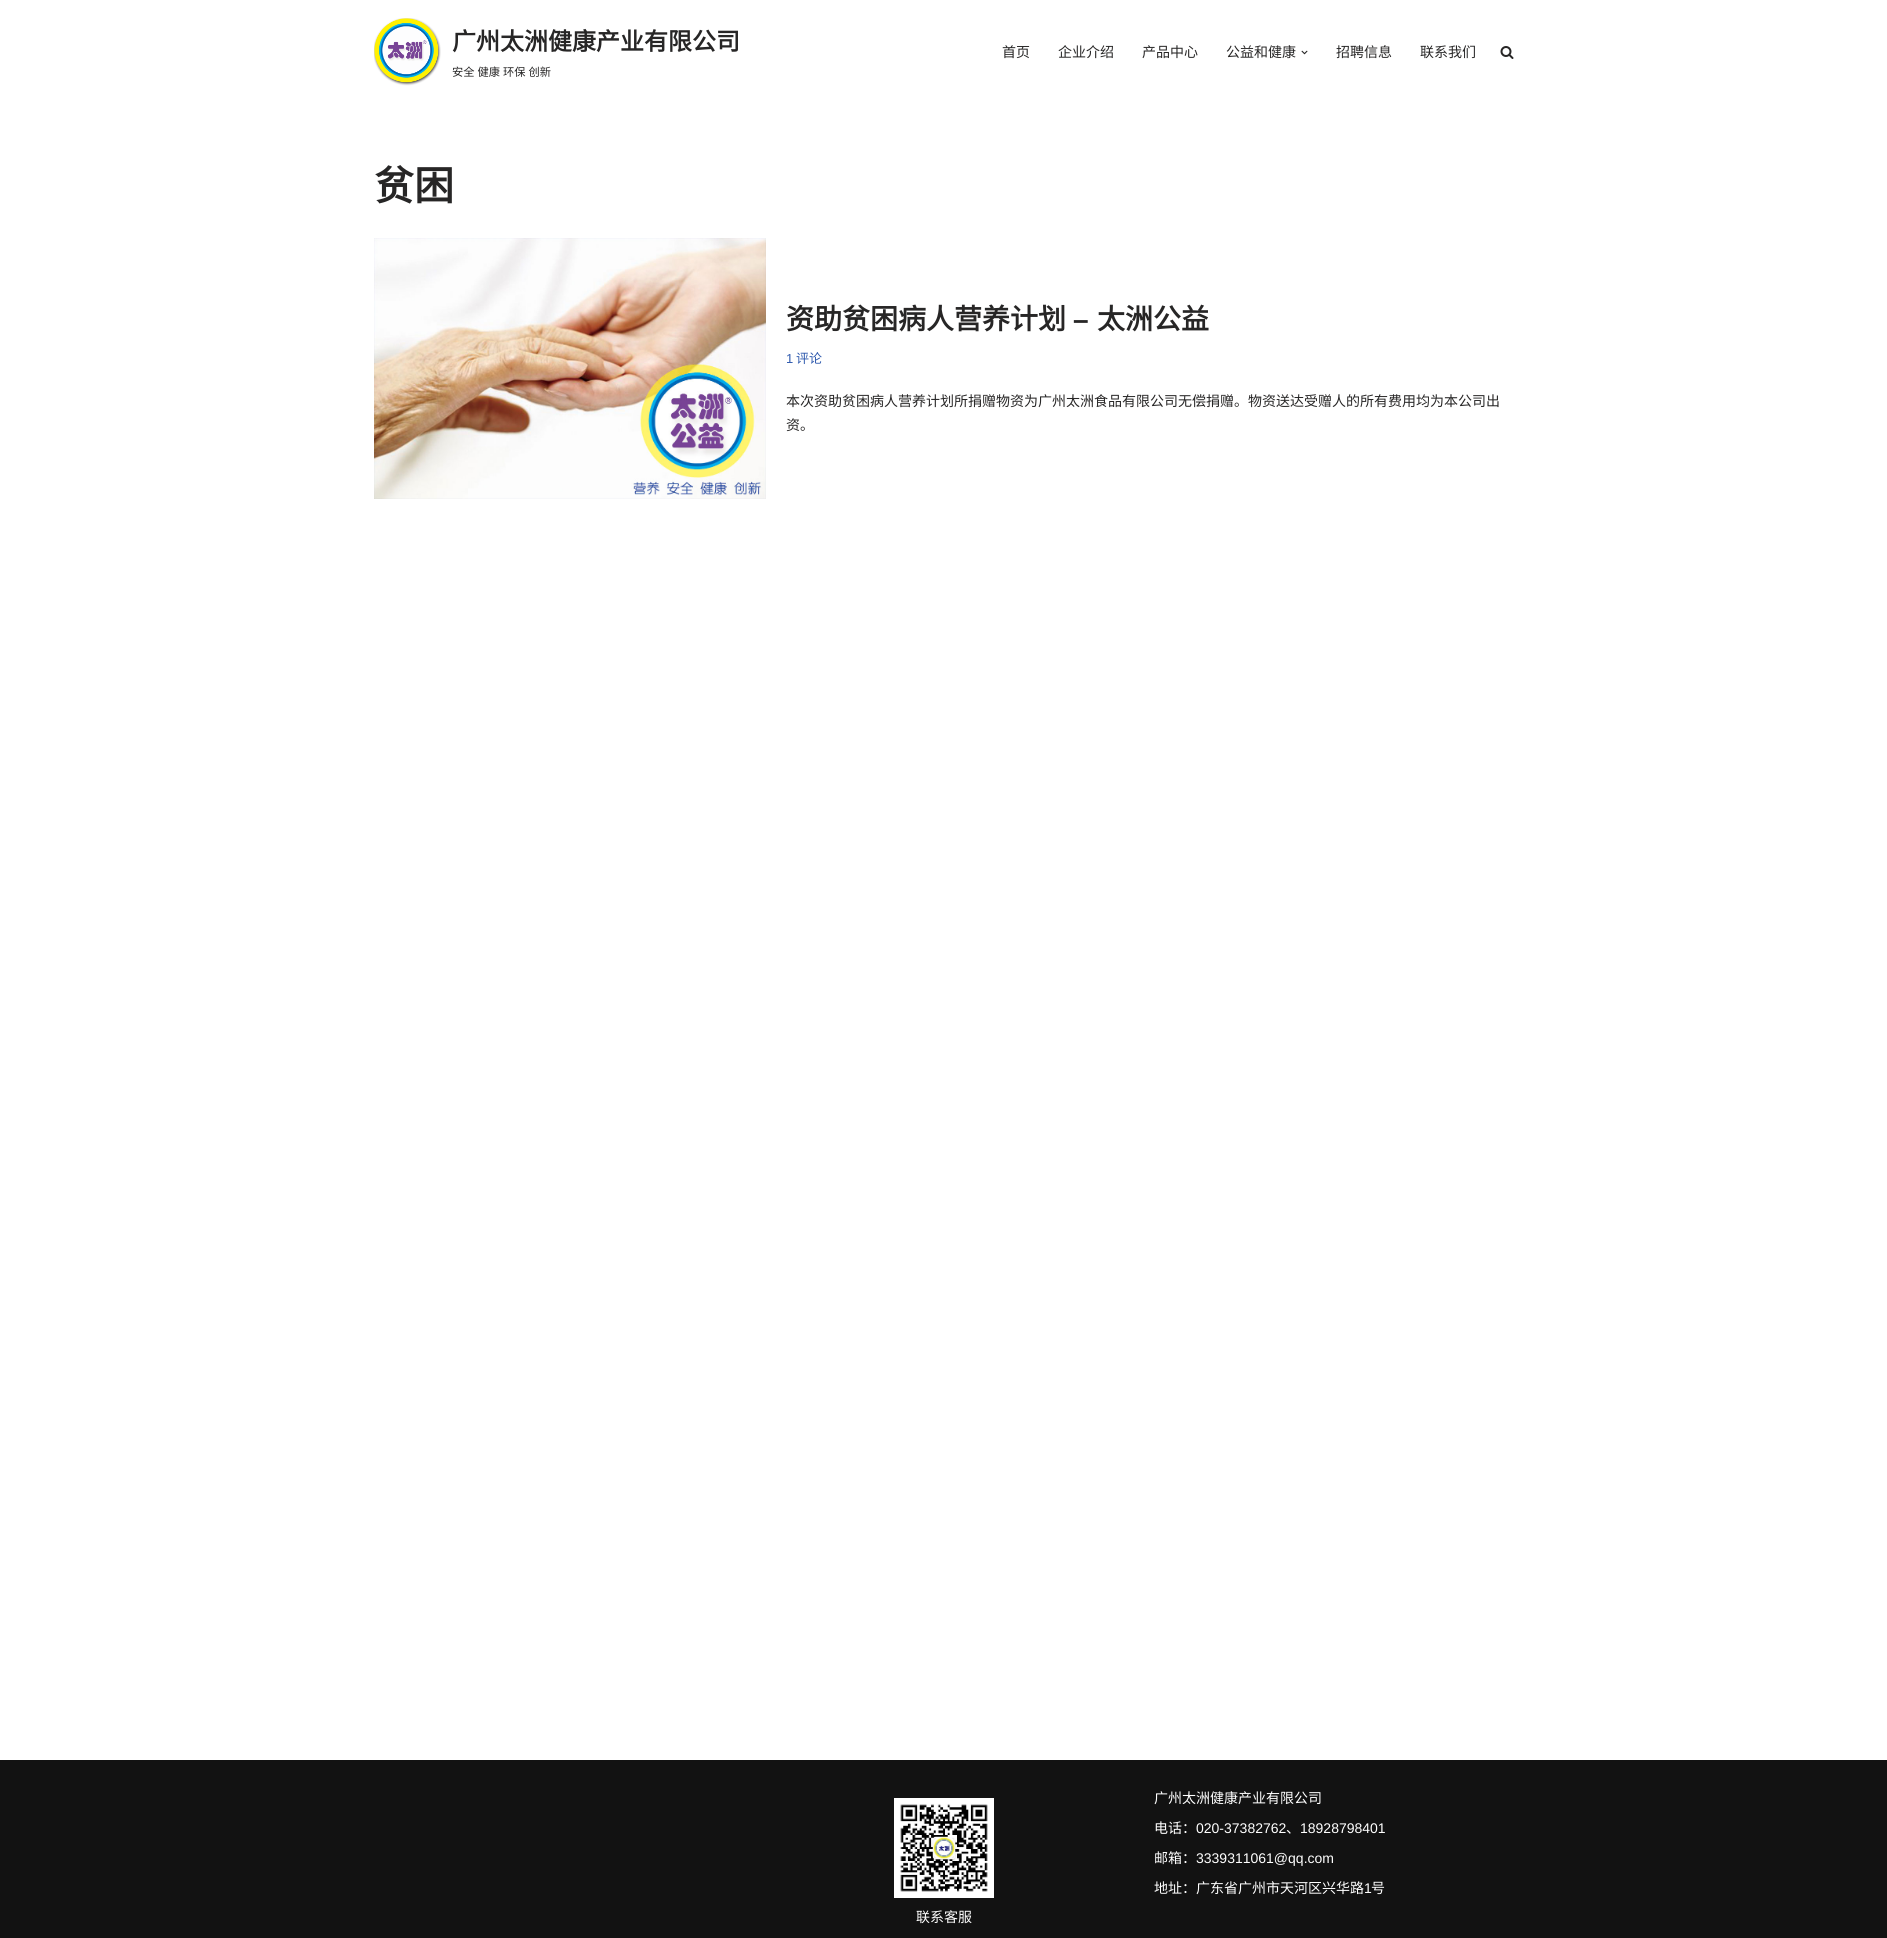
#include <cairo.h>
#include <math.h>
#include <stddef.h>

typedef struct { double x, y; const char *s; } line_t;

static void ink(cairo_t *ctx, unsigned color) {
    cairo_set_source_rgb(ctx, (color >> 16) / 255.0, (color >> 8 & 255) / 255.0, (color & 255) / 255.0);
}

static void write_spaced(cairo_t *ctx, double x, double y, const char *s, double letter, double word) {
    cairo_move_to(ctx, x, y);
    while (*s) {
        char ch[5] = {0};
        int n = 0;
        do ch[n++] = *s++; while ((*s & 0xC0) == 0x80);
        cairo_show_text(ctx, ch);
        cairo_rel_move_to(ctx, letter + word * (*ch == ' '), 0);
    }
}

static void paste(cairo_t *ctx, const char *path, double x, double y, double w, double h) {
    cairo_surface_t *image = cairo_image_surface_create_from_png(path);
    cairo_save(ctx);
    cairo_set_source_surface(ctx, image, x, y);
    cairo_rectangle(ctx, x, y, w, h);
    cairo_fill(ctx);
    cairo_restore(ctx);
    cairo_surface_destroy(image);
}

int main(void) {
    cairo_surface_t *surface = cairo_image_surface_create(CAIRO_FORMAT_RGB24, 1887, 1938);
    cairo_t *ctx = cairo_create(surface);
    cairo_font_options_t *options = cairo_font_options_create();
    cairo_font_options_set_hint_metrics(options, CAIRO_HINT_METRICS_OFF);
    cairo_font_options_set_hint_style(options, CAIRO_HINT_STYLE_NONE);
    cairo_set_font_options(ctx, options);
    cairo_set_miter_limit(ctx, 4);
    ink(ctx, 0xFFFFFF);
    cairo_paint(ctx);
    paste(ctx, "media/1.png", 374, 18, 67, 68);
    cairo_select_font_face(ctx, "Noto Sans CJK SC", CAIRO_FONT_SLANT_NORMAL, CAIRO_FONT_WEIGHT_BOLD);
    cairo_set_font_size(ctx, 24);
    ink(ctx, 0x272626);
    cairo_move_to(ctx, 452, 50);
    cairo_show_text(ctx, "广州太洲健康产业有限公司");
    cairo_select_font_face(ctx, "Noto Sans CJK SC", CAIRO_FONT_SLANT_NORMAL, CAIRO_FONT_WEIGHT_NORMAL);
    cairo_set_font_size(ctx, 11.25);
    write_spaced(ctx, 452, 76, "安全 健康 环保 创新", 0, 0.5);
    cairo_set_font_size(ctx, 14);
    {
        static const line_t items[] = {
            {1002, 57, "首页"},
            {1058, 57, "企业介绍"},
            {1142, 57, "产品中心"},
            {1226, 57, "公益和健康"},
        };
        for (size_t i = 0; i < sizeof items / sizeof *items; i++) {
            cairo_move_to(ctx, items[i].x, items[i].y);
            cairo_show_text(ctx, items[i].s);
        }
    }
    paste(ctx, "media/2.png", 1301, 50, 7, 5);
    cairo_move_to(ctx, 1336, 57);
    cairo_show_text(ctx, "招聘信息");
    cairo_move_to(ctx, 1420, 57);
    cairo_show_text(ctx, "联系我们");
    paste(ctx, "media/3.png", 1500, 46, 14, 13);
    cairo_select_font_face(ctx, "Noto Sans CJK SC", CAIRO_FONT_SLANT_NORMAL, CAIRO_FONT_WEIGHT_BOLD);
    cairo_set_font_size(ctx, 40);
    cairo_move_to(ctx, 374, 200);
    cairo_show_text(ctx, "贫困");
    paste(ctx, "media/4.png", 374, 238, 392, 261);
    cairo_set_font_size(ctx, 28);
    cairo_move_to(ctx, 786, 329);
    cairo_show_text(ctx, "资助贫困病人营养计划");
    cairo_select_font_face(ctx, "Liberation Sans", CAIRO_FONT_SLANT_NORMAL, CAIRO_FONT_WEIGHT_BOLD);
    cairo_move_to(ctx, 1073, 329);
    cairo_show_text(ctx, "–");
    cairo_select_font_face(ctx, "Noto Sans CJK SC", CAIRO_FONT_SLANT_NORMAL, CAIRO_FONT_WEIGHT_BOLD);
    cairo_move_to(ctx, 1097, 329);
    cairo_show_text(ctx, "太洲公益");
    cairo_select_font_face(ctx, "Liberation Sans", CAIRO_FONT_SLANT_NORMAL, CAIRO_FONT_WEIGHT_NORMAL);
    cairo_set_font_size(ctx, 13);
    ink(ctx, 0x2F5AAE);
    cairo_move_to(ctx, 786, 363);
    cairo_show_text(ctx, "1");
    cairo_select_font_face(ctx, "Noto Sans CJK SC", CAIRO_FONT_SLANT_NORMAL, CAIRO_FONT_WEIGHT_NORMAL);
    cairo_move_to(ctx, 796, 363);
    cairo_show_text(ctx, "评论");
    cairo_set_font_size(ctx, 14);
    ink(ctx, 0x272626);
    cairo_move_to(ctx, 786, 406);
    cairo_show_text(ctx, "本次资助贫困病人营养计划所捐赠物资为广州太洲食品有限公司无偿捐赠。物资送达受赠人的所有费用均为本公司出");
    cairo_move_to(ctx, 786, 430);
    cairo_show_text(ctx, "资。");
    ink(ctx, 0x121212);
    cairo_rectangle(ctx, 0, 1760, 1887, 178);
    cairo_fill(ctx);
    ink(ctx, 0xFFFFFF);
    cairo_move_to(ctx, 1154, 1803);
    cairo_show_text(ctx, "广州太洲健康产业有限公司");
    cairo_move_to(ctx, 1154, 1833);
    cairo_show_text(ctx, "电话：");
    cairo_select_font_face(ctx, "Liberation Sans", CAIRO_FONT_SLANT_NORMAL, CAIRO_FONT_WEIGHT_NORMAL);
    cairo_move_to(ctx, 1196, 1833);
    cairo_show_text(ctx, "020-37382762");
    cairo_select_font_face(ctx, "Noto Sans CJK SC", CAIRO_FONT_SLANT_NORMAL, CAIRO_FONT_WEIGHT_NORMAL);
    cairo_move_to(ctx, 1286, 1833);
    cairo_show_text(ctx, "、");
    cairo_select_font_face(ctx, "Liberation Sans", CAIRO_FONT_SLANT_NORMAL, CAIRO_FONT_WEIGHT_NORMAL);
    cairo_move_to(ctx, 1300, 1833);
    cairo_show_text(ctx, "18928798401");
    cairo_select_font_face(ctx, "Noto Sans CJK SC", CAIRO_FONT_SLANT_NORMAL, CAIRO_FONT_WEIGHT_NORMAL);
    cairo_move_to(ctx, 1154, 1863);
    cairo_show_text(ctx, "邮箱：");
    cairo_select_font_face(ctx, "Liberation Sans", CAIRO_FONT_SLANT_NORMAL, CAIRO_FONT_WEIGHT_NORMAL);
    cairo_move_to(ctx, 1196, 1863);
    cairo_show_text(ctx, "3339311061@qq.com");
    cairo_select_font_face(ctx, "Noto Sans CJK SC", CAIRO_FONT_SLANT_NORMAL, CAIRO_FONT_WEIGHT_NORMAL);
    cairo_move_to(ctx, 1154, 1893);
    cairo_show_text(ctx, "地址：广东省广州市天河区兴华路");
    cairo_select_font_face(ctx, "Liberation Sans", CAIRO_FONT_SLANT_NORMAL, CAIRO_FONT_WEIGHT_NORMAL);
    cairo_move_to(ctx, 1364, 1893);
    cairo_show_text(ctx, "1");
    cairo_select_font_face(ctx, "Noto Sans CJK SC", CAIRO_FONT_SLANT_NORMAL, CAIRO_FONT_WEIGHT_NORMAL);
    cairo_move_to(ctx, 1371, 1893);
    cairo_show_text(ctx, "号");
    paste(ctx, "media/5.png", 894, 1798, 100, 100);
    cairo_move_to(ctx, 916, 1922);
    cairo_show_text(ctx, "联系客服");
    cairo_surface_write_to_png(surface, "image.png");
    cairo_font_options_destroy(options);
    cairo_destroy(ctx);
    cairo_surface_destroy(surface);
    return 0;
}
